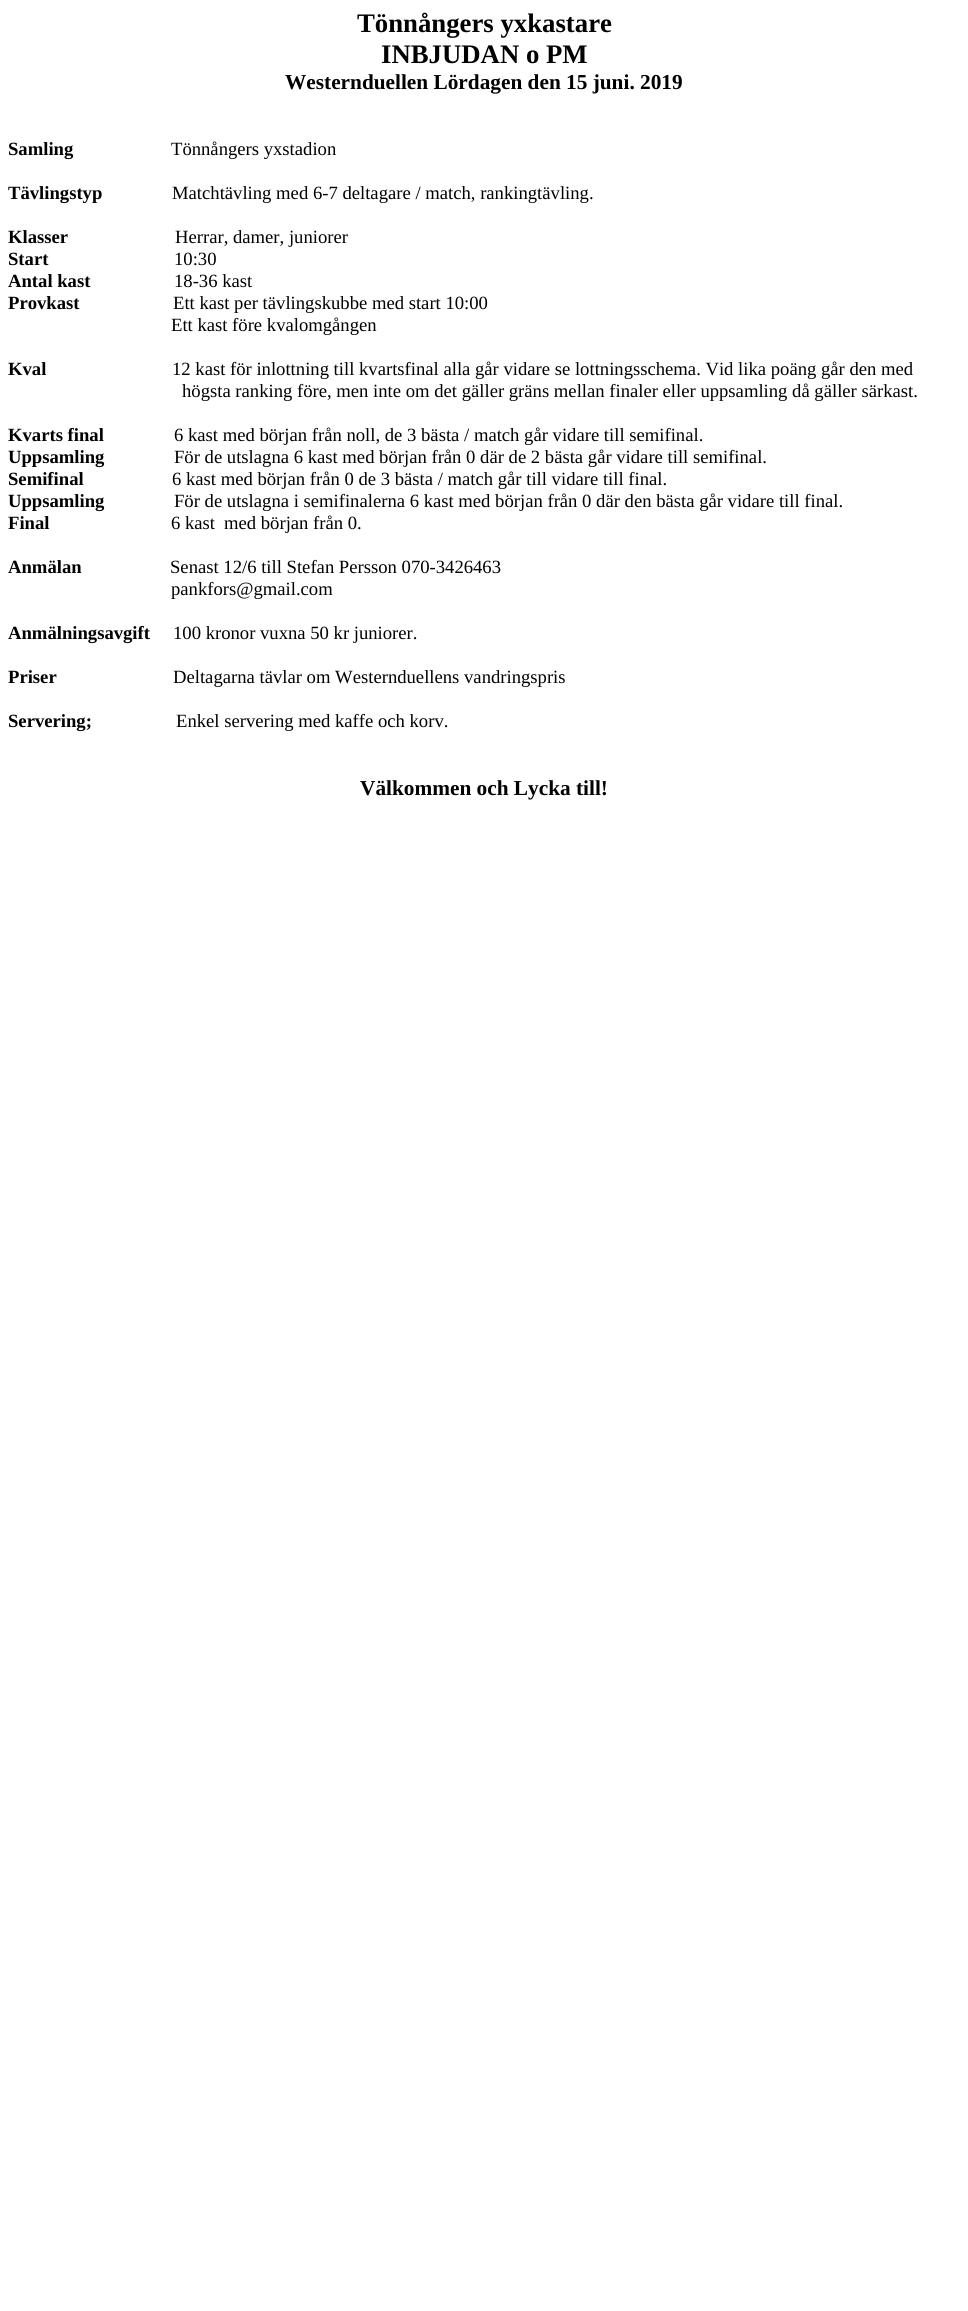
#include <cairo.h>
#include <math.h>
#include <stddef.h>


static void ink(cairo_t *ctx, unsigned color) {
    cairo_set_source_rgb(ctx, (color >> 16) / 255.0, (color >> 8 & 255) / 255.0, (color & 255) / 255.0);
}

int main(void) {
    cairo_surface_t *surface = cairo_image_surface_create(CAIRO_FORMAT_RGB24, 968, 2311);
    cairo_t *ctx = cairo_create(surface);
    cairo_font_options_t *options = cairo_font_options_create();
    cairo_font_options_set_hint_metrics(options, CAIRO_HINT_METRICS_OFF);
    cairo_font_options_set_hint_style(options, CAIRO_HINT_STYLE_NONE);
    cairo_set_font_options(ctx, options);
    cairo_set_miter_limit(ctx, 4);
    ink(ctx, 0xFFFFFF);
    cairo_paint(ctx);
    cairo_select_font_face(ctx, "Liberation Serif", CAIRO_FONT_SLANT_NORMAL, CAIRO_FONT_WEIGHT_BOLD);
    cairo_set_font_size(ctx, 26.75);
    ink(ctx, 0x000000);
    cairo_move_to(ctx, 357, 32);
    cairo_show_text(ctx, "Tönnångers yxkastare");
    cairo_move_to(ctx, 381, 63);
    cairo_show_text(ctx, "INBJUDAN o PM");
    cairo_set_font_size(ctx, 21.3);
    cairo_move_to(ctx, 285, 89);
    cairo_show_text(ctx, "Westernduellen Lördagen den 15 juni. 2019");
    cairo_set_font_size(ctx, 18.65);
    cairo_move_to(ctx, 8, 155);
    cairo_show_text(ctx, "Samling");
    cairo_select_font_face(ctx, "Liberation Serif", CAIRO_FONT_SLANT_NORMAL, CAIRO_FONT_WEIGHT_NORMAL);
    cairo_move_to(ctx, 171, 155);
    cairo_show_text(ctx, "Tönnångers yxstadion");
    cairo_select_font_face(ctx, "Liberation Serif", CAIRO_FONT_SLANT_NORMAL, CAIRO_FONT_WEIGHT_BOLD);
    cairo_move_to(ctx, 8, 199);
    cairo_show_text(ctx, "Tävlingstyp");
    cairo_select_font_face(ctx, "Liberation Serif", CAIRO_FONT_SLANT_NORMAL, CAIRO_FONT_WEIGHT_NORMAL);
    cairo_move_to(ctx, 172, 199);
    cairo_show_text(ctx, "Matchtävling med 6-7 deltagare / match, rankingtävling.");
    cairo_select_font_face(ctx, "Liberation Serif", CAIRO_FONT_SLANT_NORMAL, CAIRO_FONT_WEIGHT_BOLD);
    cairo_move_to(ctx, 8, 243);
    cairo_show_text(ctx, "Klasser");
    cairo_select_font_face(ctx, "Liberation Serif", CAIRO_FONT_SLANT_NORMAL, CAIRO_FONT_WEIGHT_NORMAL);
    cairo_move_to(ctx, 175, 243);
    cairo_show_text(ctx, "Herrar, damer, juniorer");
    cairo_select_font_face(ctx, "Liberation Serif", CAIRO_FONT_SLANT_NORMAL, CAIRO_FONT_WEIGHT_BOLD);
    cairo_move_to(ctx, 8, 265);
    cairo_show_text(ctx, "Start");
    cairo_select_font_face(ctx, "Liberation Serif", CAIRO_FONT_SLANT_NORMAL, CAIRO_FONT_WEIGHT_NORMAL);
    cairo_move_to(ctx, 174, 265);
    cairo_show_text(ctx, "10:30");
    cairo_select_font_face(ctx, "Liberation Serif", CAIRO_FONT_SLANT_NORMAL, CAIRO_FONT_WEIGHT_BOLD);
    cairo_move_to(ctx, 8, 287);
    cairo_show_text(ctx, "Antal kast");
    cairo_select_font_face(ctx, "Liberation Serif", CAIRO_FONT_SLANT_NORMAL, CAIRO_FONT_WEIGHT_NORMAL);
    cairo_move_to(ctx, 174, 287);
    cairo_show_text(ctx, "18-36 kast");
    cairo_select_font_face(ctx, "Liberation Serif", CAIRO_FONT_SLANT_NORMAL, CAIRO_FONT_WEIGHT_BOLD);
    cairo_move_to(ctx, 8, 309);
    cairo_show_text(ctx, "Provkast");
    cairo_select_font_face(ctx, "Liberation Serif", CAIRO_FONT_SLANT_NORMAL, CAIRO_FONT_WEIGHT_NORMAL);
    cairo_move_to(ctx, 173, 309);
    cairo_show_text(ctx, "Ett kast per tävlingskubbe med start 10:00");
    cairo_move_to(ctx, 171, 331);
    cairo_show_text(ctx, "Ett kast före kvalomgången");
    cairo_select_font_face(ctx, "Liberation Serif", CAIRO_FONT_SLANT_NORMAL, CAIRO_FONT_WEIGHT_BOLD);
    cairo_move_to(ctx, 8, 375);
    cairo_show_text(ctx, "Kval");
    cairo_select_font_face(ctx, "Liberation Serif", CAIRO_FONT_SLANT_NORMAL, CAIRO_FONT_WEIGHT_NORMAL);
    cairo_move_to(ctx, 172, 375);
    cairo_show_text(ctx, "12 kast för inlottning till kvartsfinal alla går vidare se lottningsschema. Vid lika poäng går den med");
    cairo_move_to(ctx, 182, 397);
    cairo_show_text(ctx, "högsta ranking före, men inte om det gäller gräns mellan finaler eller uppsamling då gäller särkast.");
    cairo_select_font_face(ctx, "Liberation Serif", CAIRO_FONT_SLANT_NORMAL, CAIRO_FONT_WEIGHT_BOLD);
    cairo_move_to(ctx, 8, 441);
    cairo_show_text(ctx, "Kvarts final");
    cairo_select_font_face(ctx, "Liberation Serif", CAIRO_FONT_SLANT_NORMAL, CAIRO_FONT_WEIGHT_NORMAL);
    cairo_move_to(ctx, 174, 441);
    cairo_show_text(ctx, "6 kast med början från noll, de 3 bästa / match går vidare till semifinal.");
    cairo_select_font_face(ctx, "Liberation Serif", CAIRO_FONT_SLANT_NORMAL, CAIRO_FONT_WEIGHT_BOLD);
    cairo_move_to(ctx, 8, 463);
    cairo_show_text(ctx, "Uppsamling");
    cairo_select_font_face(ctx, "Liberation Serif", CAIRO_FONT_SLANT_NORMAL, CAIRO_FONT_WEIGHT_NORMAL);
    cairo_move_to(ctx, 174, 463);
    cairo_show_text(ctx, "För de utslagna 6 kast med början från 0 där de 2 bästa går vidare till semifinal.");
    cairo_select_font_face(ctx, "Liberation Serif", CAIRO_FONT_SLANT_NORMAL, CAIRO_FONT_WEIGHT_BOLD);
    cairo_move_to(ctx, 8, 485);
    cairo_show_text(ctx, "Semifinal");
    cairo_select_font_face(ctx, "Liberation Serif", CAIRO_FONT_SLANT_NORMAL, CAIRO_FONT_WEIGHT_NORMAL);
    cairo_move_to(ctx, 172, 485);
    cairo_show_text(ctx, "6 kast med början från 0 de 3 bästa / match går till vidare till final.");
    cairo_select_font_face(ctx, "Liberation Serif", CAIRO_FONT_SLANT_NORMAL, CAIRO_FONT_WEIGHT_BOLD);
    cairo_move_to(ctx, 8, 507);
    cairo_show_text(ctx, "Uppsamling");
    cairo_select_font_face(ctx, "Liberation Serif", CAIRO_FONT_SLANT_NORMAL, CAIRO_FONT_WEIGHT_NORMAL);
    cairo_move_to(ctx, 174, 507);
    cairo_show_text(ctx, "För de utslagna i semifinalerna 6 kast med början från 0 där den bästa går vidare till final.");
    cairo_select_font_face(ctx, "Liberation Serif", CAIRO_FONT_SLANT_NORMAL, CAIRO_FONT_WEIGHT_BOLD);
    cairo_move_to(ctx, 8, 529);
    cairo_show_text(ctx, "Final");
    cairo_select_font_face(ctx, "Liberation Serif", CAIRO_FONT_SLANT_NORMAL, CAIRO_FONT_WEIGHT_NORMAL);
    cairo_move_to(ctx, 171, 529);
    cairo_show_text(ctx, "6 kast");
    cairo_move_to(ctx, 224, 529);
    cairo_show_text(ctx, "med början från 0.");
    cairo_select_font_face(ctx, "Liberation Serif", CAIRO_FONT_SLANT_NORMAL, CAIRO_FONT_WEIGHT_BOLD);
    cairo_move_to(ctx, 8, 573);
    cairo_show_text(ctx, "Anmälan");
    cairo_select_font_face(ctx, "Liberation Serif", CAIRO_FONT_SLANT_NORMAL, CAIRO_FONT_WEIGHT_NORMAL);
    cairo_move_to(ctx, 170, 573);
    cairo_show_text(ctx, "Senast 12/6 till Stefan Persson 070-3426463");
    cairo_move_to(ctx, 171, 595);
    cairo_show_text(ctx, "pankfors@gmail.com");
    cairo_select_font_face(ctx, "Liberation Serif", CAIRO_FONT_SLANT_NORMAL, CAIRO_FONT_WEIGHT_BOLD);
    cairo_move_to(ctx, 8, 639);
    cairo_show_text(ctx, "Anmälningsavgift");
    cairo_select_font_face(ctx, "Liberation Serif", CAIRO_FONT_SLANT_NORMAL, CAIRO_FONT_WEIGHT_NORMAL);
    cairo_move_to(ctx, 173, 639);
    cairo_show_text(ctx, "100 kronor vuxna 50 kr juniorer.");
    cairo_select_font_face(ctx, "Liberation Serif", CAIRO_FONT_SLANT_NORMAL, CAIRO_FONT_WEIGHT_BOLD);
    cairo_move_to(ctx, 8, 683);
    cairo_show_text(ctx, "Priser");
    cairo_select_font_face(ctx, "Liberation Serif", CAIRO_FONT_SLANT_NORMAL, CAIRO_FONT_WEIGHT_NORMAL);
    cairo_move_to(ctx, 173, 683);
    cairo_show_text(ctx, "Deltagarna tävlar om Westernduellens vandringspris");
    cairo_select_font_face(ctx, "Liberation Serif", CAIRO_FONT_SLANT_NORMAL, CAIRO_FONT_WEIGHT_BOLD);
    cairo_move_to(ctx, 8, 727);
    cairo_show_text(ctx, "Servering;");
    cairo_select_font_face(ctx, "Liberation Serif", CAIRO_FONT_SLANT_NORMAL, CAIRO_FONT_WEIGHT_NORMAL);
    cairo_move_to(ctx, 176, 727);
    cairo_show_text(ctx, "Enkel servering med kaffe och korv.");
    cairo_select_font_face(ctx, "Liberation Serif", CAIRO_FONT_SLANT_NORMAL, CAIRO_FONT_WEIGHT_BOLD);
    cairo_set_font_size(ctx, 21.3);
    cairo_move_to(ctx, 360, 795);
    cairo_show_text(ctx, "Välkommen och Lycka till!");
    cairo_surface_write_to_png(surface, "image.png");
    cairo_font_options_destroy(options);
    cairo_destroy(ctx);
    cairo_surface_destroy(surface);
    return 0;
}
